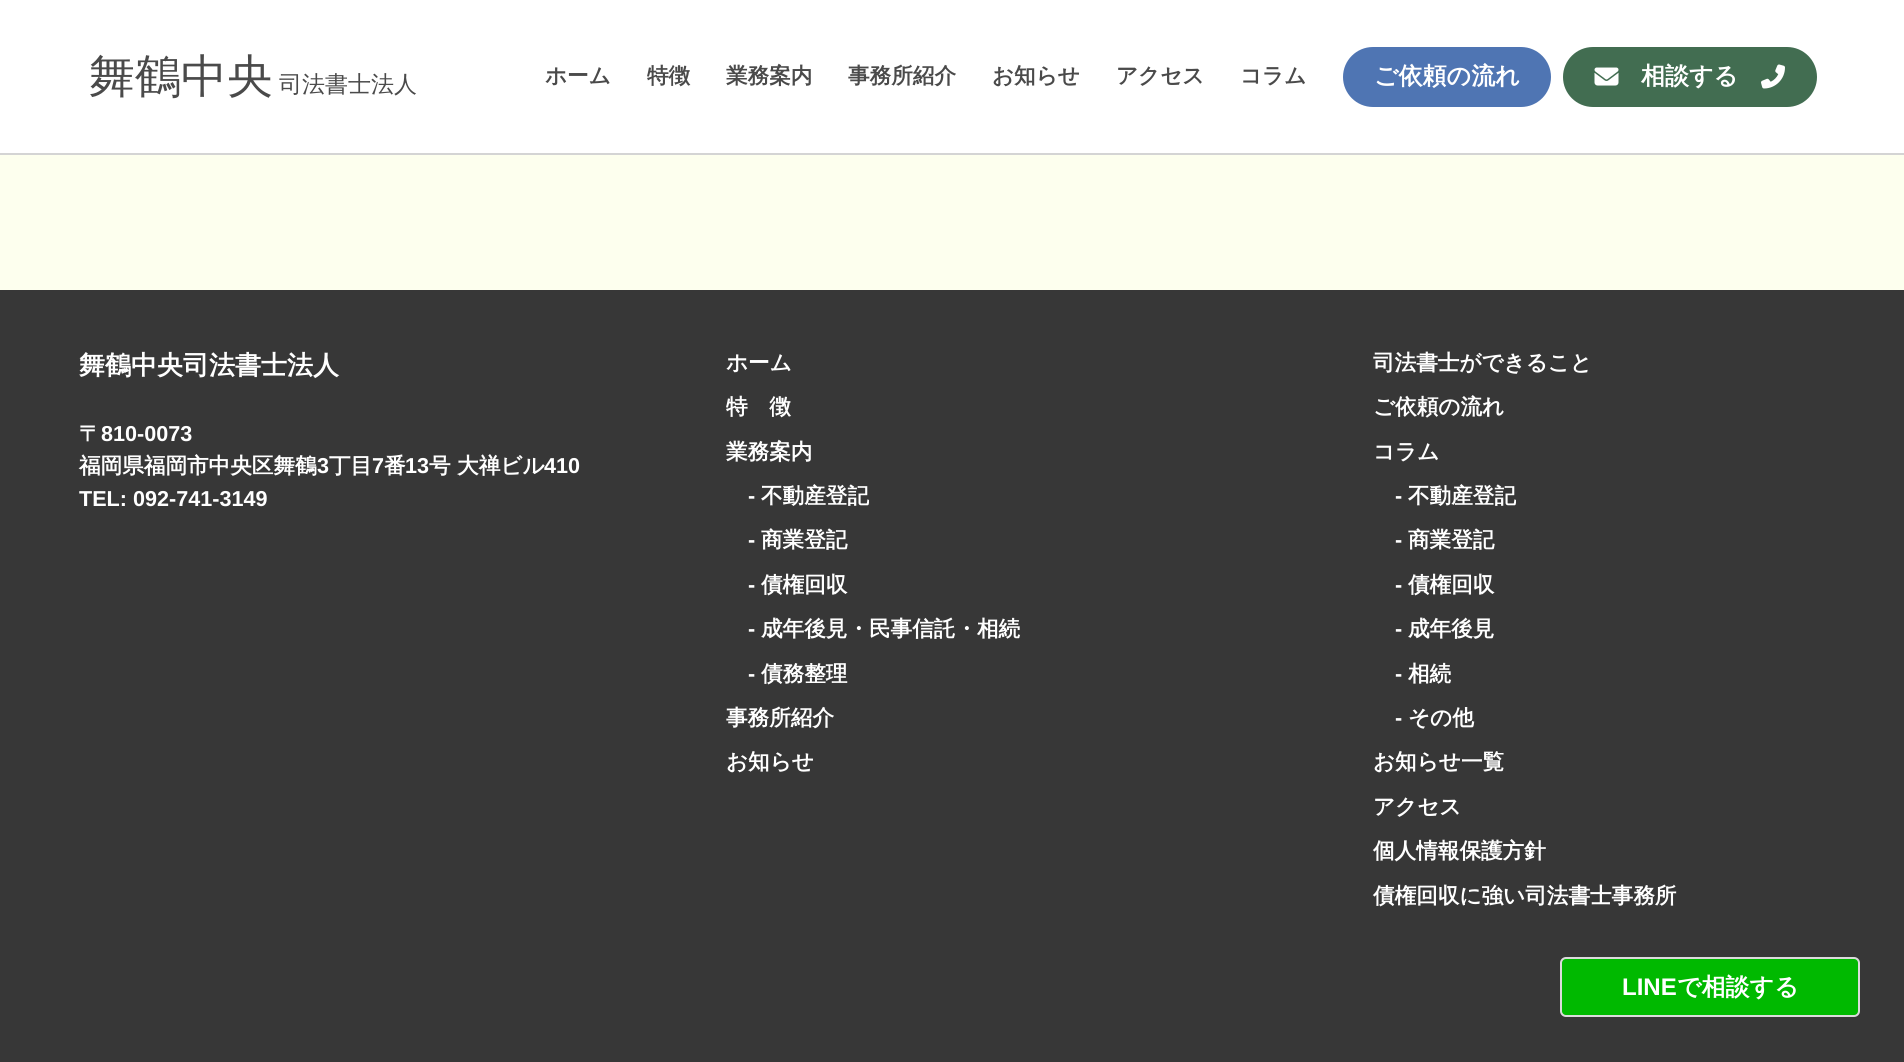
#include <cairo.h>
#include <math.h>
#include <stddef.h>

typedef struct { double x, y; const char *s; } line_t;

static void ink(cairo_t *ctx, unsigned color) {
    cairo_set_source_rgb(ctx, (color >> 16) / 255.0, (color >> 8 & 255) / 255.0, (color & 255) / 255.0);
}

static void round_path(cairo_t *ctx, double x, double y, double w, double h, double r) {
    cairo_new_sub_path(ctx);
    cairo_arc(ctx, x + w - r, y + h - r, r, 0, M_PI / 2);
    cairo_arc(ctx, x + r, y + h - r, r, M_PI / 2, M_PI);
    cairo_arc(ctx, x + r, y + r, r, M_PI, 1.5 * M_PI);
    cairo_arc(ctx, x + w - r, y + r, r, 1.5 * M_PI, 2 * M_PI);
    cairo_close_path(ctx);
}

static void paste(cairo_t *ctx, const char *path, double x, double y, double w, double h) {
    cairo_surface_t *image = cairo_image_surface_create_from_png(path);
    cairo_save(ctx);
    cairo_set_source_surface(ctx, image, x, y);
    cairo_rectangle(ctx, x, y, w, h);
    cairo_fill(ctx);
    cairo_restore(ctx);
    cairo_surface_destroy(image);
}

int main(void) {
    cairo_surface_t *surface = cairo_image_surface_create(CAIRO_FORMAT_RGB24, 1904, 1062);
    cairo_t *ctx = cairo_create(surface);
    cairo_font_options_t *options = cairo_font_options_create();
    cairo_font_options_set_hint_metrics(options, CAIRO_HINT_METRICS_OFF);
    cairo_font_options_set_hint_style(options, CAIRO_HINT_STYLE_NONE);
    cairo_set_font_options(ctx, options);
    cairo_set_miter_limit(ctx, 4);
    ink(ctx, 0xFDFFEE);
    cairo_paint(ctx);
    ink(ctx, 0xFFFFFF);
    cairo_rectangle(ctx, 0, 0, 1904, 153);
    cairo_fill(ctx);
    ink(ctx, 0xD4D4D4);
    cairo_rectangle(ctx, 0, 153, 1904, 2);
    cairo_fill(ctx);
    cairo_select_font_face(ctx, "WenQuanYi Zen Hei Medium", CAIRO_FONT_SLANT_NORMAL, CAIRO_FONT_WEIGHT_NORMAL);
    cairo_set_font_size(ctx, 46);
    ink(ctx, 0x4A4A4A);
    cairo_move_to(ctx, 89, 92);
    cairo_show_text(ctx, "舞鶴中央");
    cairo_set_font_size(ctx, 23);
    cairo_move_to(ctx, 279, 92);
    cairo_show_text(ctx, "司法書士法人");
    cairo_select_font_face(ctx, "WenQuanYi Zen Hei", CAIRO_FONT_SLANT_NORMAL, CAIRO_FONT_WEIGHT_BOLD);
    cairo_set_font_size(ctx, 21.6);
    {
        static const line_t items[] = {
            {545, 83, "ホーム"},
            {647, 83, "特徴"},
            {726, 83, "業務案内"},
            {848, 83, "事務所紹介"},
            {992, 83, "お知らせ"},
            {1116, 83, "アクセス"},
            {1240, 83, "コラム"},
        };
        for (size_t i = 0; i < sizeof items / sizeof *items; i++) {
            cairo_move_to(ctx, items[i].x, items[i].y);
            cairo_show_text(ctx, items[i].s);
        }
    }
    ink(ctx, 0x4F75B3);
    round_path(ctx, 1343, 47, 208, 60, 30);
    cairo_fill(ctx);
    cairo_set_font_size(ctx, 24);
    ink(ctx, 0xFFFFFF);
    cairo_move_to(ctx, 1374, 84);
    cairo_show_text(ctx, "ご依頼の流れ");
    ink(ctx, 0x426D51);
    round_path(ctx, 1563, 47, 254, 60, 30);
    cairo_fill(ctx);
    paste(ctx, "media/1.png", 1594, 67, 25, 19);
    ink(ctx, 0xFFFFFF);
    cairo_move_to(ctx, 1641, 84);
    cairo_show_text(ctx, "相談する");
    paste(ctx, "media/2.png", 1761, 64, 24, 25);
    ink(ctx, 0x373737);
    cairo_rectangle(ctx, 0, 290, 1904, 772);
    cairo_fill(ctx);
    cairo_set_font_size(ctx, 26);
    ink(ctx, 0xFFFFFF);
    cairo_move_to(ctx, 79, 374);
    cairo_show_text(ctx, "舞鶴中央司法書士法人");
    cairo_set_font_size(ctx, 21.6);
    cairo_move_to(ctx, 79, 441);
    cairo_show_text(ctx, "〒");
    cairo_select_font_face(ctx, "Liberation Sans", CAIRO_FONT_SLANT_NORMAL, CAIRO_FONT_WEIGHT_BOLD);
    cairo_move_to(ctx, 101, 441);
    cairo_show_text(ctx, "810-0073");
    cairo_select_font_face(ctx, "WenQuanYi Zen Hei", CAIRO_FONT_SLANT_NORMAL, CAIRO_FONT_WEIGHT_BOLD);
    cairo_move_to(ctx, 79, 473);
    cairo_show_text(ctx, "福岡県福岡市中央区舞鶴");
    cairo_select_font_face(ctx, "Liberation Sans", CAIRO_FONT_SLANT_NORMAL, CAIRO_FONT_WEIGHT_BOLD);
    cairo_move_to(ctx, 317, 473);
    cairo_show_text(ctx, "3");
    cairo_select_font_face(ctx, "WenQuanYi Zen Hei", CAIRO_FONT_SLANT_NORMAL, CAIRO_FONT_WEIGHT_BOLD);
    cairo_move_to(ctx, 329, 473);
    cairo_show_text(ctx, "丁目");
    cairo_select_font_face(ctx, "Liberation Sans", CAIRO_FONT_SLANT_NORMAL, CAIRO_FONT_WEIGHT_BOLD);
    cairo_move_to(ctx, 372, 473);
    cairo_show_text(ctx, "7");
    cairo_select_font_face(ctx, "WenQuanYi Zen Hei", CAIRO_FONT_SLANT_NORMAL, CAIRO_FONT_WEIGHT_BOLD);
    cairo_move_to(ctx, 384, 473);
    cairo_show_text(ctx, "番");
    cairo_select_font_face(ctx, "Liberation Sans", CAIRO_FONT_SLANT_NORMAL, CAIRO_FONT_WEIGHT_BOLD);
    cairo_move_to(ctx, 405, 473);
    cairo_show_text(ctx, "13");
    cairo_select_font_face(ctx, "WenQuanYi Zen Hei", CAIRO_FONT_SLANT_NORMAL, CAIRO_FONT_WEIGHT_BOLD);
    cairo_move_to(ctx, 429, 473);
    cairo_show_text(ctx, "号 大禅ビル");
    cairo_select_font_face(ctx, "Liberation Sans", CAIRO_FONT_SLANT_NORMAL, CAIRO_FONT_WEIGHT_BOLD);
    cairo_move_to(ctx, 544, 473);
    cairo_show_text(ctx, "410");
    cairo_move_to(ctx, 79, 506);
    cairo_show_text(ctx, "TEL: 092-741-3149");
    cairo_select_font_face(ctx, "WenQuanYi Zen Hei", CAIRO_FONT_SLANT_NORMAL, CAIRO_FONT_WEIGHT_BOLD);
    {
        static const line_t items[] = {
            {726, 370, "ホーム"},
            {726, 414, "特　徴"},
            {726, 459, "業務案内"},
        };
        for (size_t i = 0; i < sizeof items / sizeof *items; i++) {
            cairo_move_to(ctx, items[i].x, items[i].y);
            cairo_show_text(ctx, items[i].s);
        }
    }
    cairo_select_font_face(ctx, "Liberation Sans", CAIRO_FONT_SLANT_NORMAL, CAIRO_FONT_WEIGHT_BOLD);
    cairo_move_to(ctx, 748, 503);
    cairo_show_text(ctx, "-");
    cairo_select_font_face(ctx, "WenQuanYi Zen Hei", CAIRO_FONT_SLANT_NORMAL, CAIRO_FONT_WEIGHT_BOLD);
    cairo_move_to(ctx, 761, 503);
    cairo_show_text(ctx, "不動産登記");
    cairo_select_font_face(ctx, "Liberation Sans", CAIRO_FONT_SLANT_NORMAL, CAIRO_FONT_WEIGHT_BOLD);
    cairo_move_to(ctx, 748, 547);
    cairo_show_text(ctx, "-");
    cairo_select_font_face(ctx, "WenQuanYi Zen Hei", CAIRO_FONT_SLANT_NORMAL, CAIRO_FONT_WEIGHT_BOLD);
    cairo_move_to(ctx, 761, 547);
    cairo_show_text(ctx, "商業登記");
    cairo_select_font_face(ctx, "Liberation Sans", CAIRO_FONT_SLANT_NORMAL, CAIRO_FONT_WEIGHT_BOLD);
    cairo_move_to(ctx, 748, 592);
    cairo_show_text(ctx, "-");
    cairo_select_font_face(ctx, "WenQuanYi Zen Hei", CAIRO_FONT_SLANT_NORMAL, CAIRO_FONT_WEIGHT_BOLD);
    cairo_move_to(ctx, 761, 592);
    cairo_show_text(ctx, "債権回収");
    cairo_select_font_face(ctx, "Liberation Sans", CAIRO_FONT_SLANT_NORMAL, CAIRO_FONT_WEIGHT_BOLD);
    cairo_move_to(ctx, 748, 636);
    cairo_show_text(ctx, "-");
    cairo_select_font_face(ctx, "WenQuanYi Zen Hei", CAIRO_FONT_SLANT_NORMAL, CAIRO_FONT_WEIGHT_BOLD);
    cairo_move_to(ctx, 761, 636);
    cairo_show_text(ctx, "成年後見・民事信託・相続");
    cairo_select_font_face(ctx, "Liberation Sans", CAIRO_FONT_SLANT_NORMAL, CAIRO_FONT_WEIGHT_BOLD);
    cairo_move_to(ctx, 748, 681);
    cairo_show_text(ctx, "-");
    cairo_select_font_face(ctx, "WenQuanYi Zen Hei", CAIRO_FONT_SLANT_NORMAL, CAIRO_FONT_WEIGHT_BOLD);
    {
        static const line_t items[] = {
            {761, 681, "債務整理"},
            {726, 725, "事務所紹介"},
            {726, 769, "お知らせ"},
            {1373, 370, "司法書士ができること"},
            {1373, 414, "ご依頼の流れ"},
            {1373, 459, "コラム"},
        };
        for (size_t i = 0; i < sizeof items / sizeof *items; i++) {
            cairo_move_to(ctx, items[i].x, items[i].y);
            cairo_show_text(ctx, items[i].s);
        }
    }
    cairo_select_font_face(ctx, "Liberation Sans", CAIRO_FONT_SLANT_NORMAL, CAIRO_FONT_WEIGHT_BOLD);
    cairo_move_to(ctx, 1395, 503);
    cairo_show_text(ctx, "-");
    cairo_select_font_face(ctx, "WenQuanYi Zen Hei", CAIRO_FONT_SLANT_NORMAL, CAIRO_FONT_WEIGHT_BOLD);
    cairo_move_to(ctx, 1408, 503);
    cairo_show_text(ctx, "不動産登記");
    cairo_select_font_face(ctx, "Liberation Sans", CAIRO_FONT_SLANT_NORMAL, CAIRO_FONT_WEIGHT_BOLD);
    cairo_move_to(ctx, 1395, 547);
    cairo_show_text(ctx, "-");
    cairo_select_font_face(ctx, "WenQuanYi Zen Hei", CAIRO_FONT_SLANT_NORMAL, CAIRO_FONT_WEIGHT_BOLD);
    cairo_move_to(ctx, 1408, 547);
    cairo_show_text(ctx, "商業登記");
    cairo_select_font_face(ctx, "Liberation Sans", CAIRO_FONT_SLANT_NORMAL, CAIRO_FONT_WEIGHT_BOLD);
    cairo_move_to(ctx, 1395, 592);
    cairo_show_text(ctx, "-");
    cairo_select_font_face(ctx, "WenQuanYi Zen Hei", CAIRO_FONT_SLANT_NORMAL, CAIRO_FONT_WEIGHT_BOLD);
    cairo_move_to(ctx, 1408, 592);
    cairo_show_text(ctx, "債権回収");
    cairo_select_font_face(ctx, "Liberation Sans", CAIRO_FONT_SLANT_NORMAL, CAIRO_FONT_WEIGHT_BOLD);
    cairo_move_to(ctx, 1395, 636);
    cairo_show_text(ctx, "-");
    cairo_select_font_face(ctx, "WenQuanYi Zen Hei", CAIRO_FONT_SLANT_NORMAL, CAIRO_FONT_WEIGHT_BOLD);
    cairo_move_to(ctx, 1408, 636);
    cairo_show_text(ctx, "成年後見");
    cairo_select_font_face(ctx, "Liberation Sans", CAIRO_FONT_SLANT_NORMAL, CAIRO_FONT_WEIGHT_BOLD);
    cairo_move_to(ctx, 1395, 681);
    cairo_show_text(ctx, "-");
    cairo_select_font_face(ctx, "WenQuanYi Zen Hei", CAIRO_FONT_SLANT_NORMAL, CAIRO_FONT_WEIGHT_BOLD);
    cairo_move_to(ctx, 1408, 681);
    cairo_show_text(ctx, "相続");
    cairo_select_font_face(ctx, "Liberation Sans", CAIRO_FONT_SLANT_NORMAL, CAIRO_FONT_WEIGHT_BOLD);
    cairo_move_to(ctx, 1395, 725);
    cairo_show_text(ctx, "-");
    cairo_select_font_face(ctx, "WenQuanYi Zen Hei", CAIRO_FONT_SLANT_NORMAL, CAIRO_FONT_WEIGHT_BOLD);
    {
        static const line_t items[] = {
            {1408, 725, "その他"},
            {1373, 769, "お知らせ一覧"},
            {1373, 814, "アクセス"},
            {1373, 858, "個人情報保護方針"},
            {1373, 903, "債権回収に強い司法書士事務所"},
        };
        for (size_t i = 0; i < sizeof items / sizeof *items; i++) {
            cairo_move_to(ctx, items[i].x, items[i].y);
            cairo_show_text(ctx, items[i].s);
        }
    }
    ink(ctx, 0x00B900);
    round_path(ctx, 1561, 958, 298, 58, 5);
    cairo_fill_preserve(ctx);
    ink(ctx, 0xDBDBDB);
    cairo_stroke(ctx);
    cairo_select_font_face(ctx, "Liberation Sans", CAIRO_FONT_SLANT_NORMAL, CAIRO_FONT_WEIGHT_BOLD);
    cairo_set_font_size(ctx, 24);
    ink(ctx, 0xFFFFFF);
    cairo_move_to(ctx, 1622, 995);
    cairo_show_text(ctx, "LINE");
    cairo_select_font_face(ctx, "WenQuanYi Zen Hei", CAIRO_FONT_SLANT_NORMAL, CAIRO_FONT_WEIGHT_BOLD);
    cairo_move_to(ctx, 1677, 995);
    cairo_show_text(ctx, "で相談する");
    cairo_surface_write_to_png(surface, "image.png");
    cairo_font_options_destroy(options);
    cairo_destroy(ctx);
    cairo_surface_destroy(surface);
    return 0;
}
